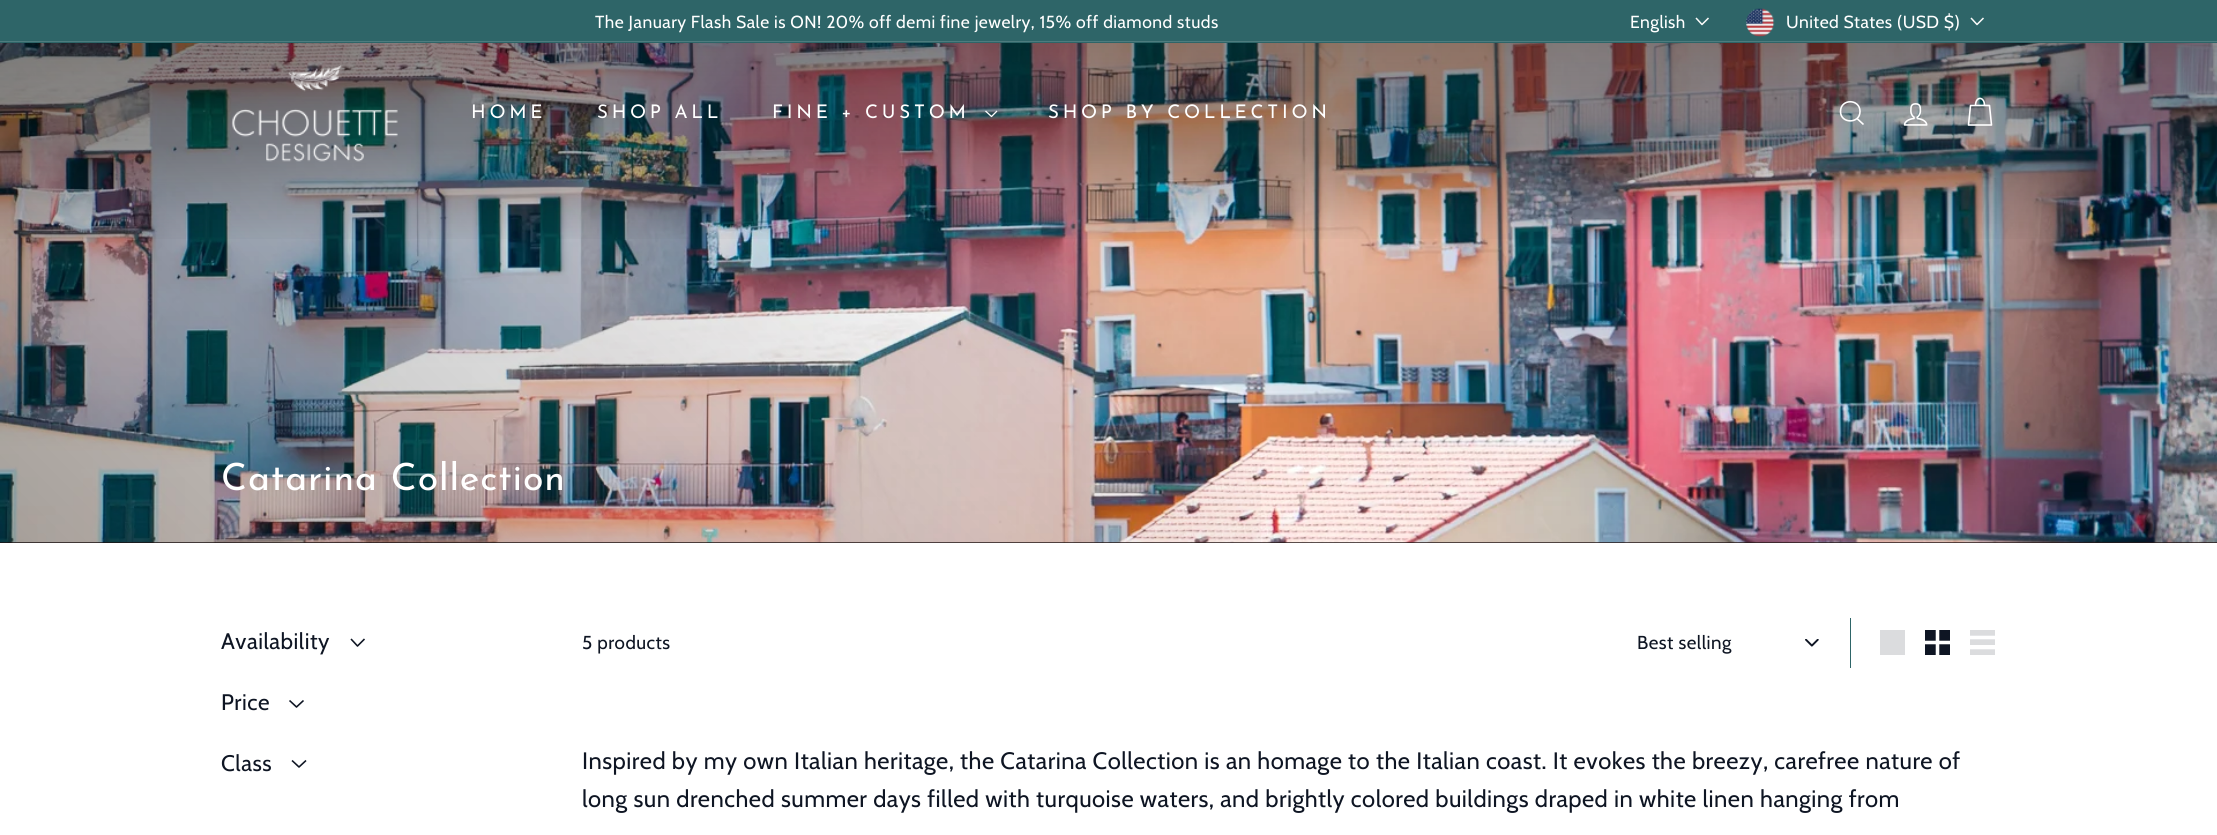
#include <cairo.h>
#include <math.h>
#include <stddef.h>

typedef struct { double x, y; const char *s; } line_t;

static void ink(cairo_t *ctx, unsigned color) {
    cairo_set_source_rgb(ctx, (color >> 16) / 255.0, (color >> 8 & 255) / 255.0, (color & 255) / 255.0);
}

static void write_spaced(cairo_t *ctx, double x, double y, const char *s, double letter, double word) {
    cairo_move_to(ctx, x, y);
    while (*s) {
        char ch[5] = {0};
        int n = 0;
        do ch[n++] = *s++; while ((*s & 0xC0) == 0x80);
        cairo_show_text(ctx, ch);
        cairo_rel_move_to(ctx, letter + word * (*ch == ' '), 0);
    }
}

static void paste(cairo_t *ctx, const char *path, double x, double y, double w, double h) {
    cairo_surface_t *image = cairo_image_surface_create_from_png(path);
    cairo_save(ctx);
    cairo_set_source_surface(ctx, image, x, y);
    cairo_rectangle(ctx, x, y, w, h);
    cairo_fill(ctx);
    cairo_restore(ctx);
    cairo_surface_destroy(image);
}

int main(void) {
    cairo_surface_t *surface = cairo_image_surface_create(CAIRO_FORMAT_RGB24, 2217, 835);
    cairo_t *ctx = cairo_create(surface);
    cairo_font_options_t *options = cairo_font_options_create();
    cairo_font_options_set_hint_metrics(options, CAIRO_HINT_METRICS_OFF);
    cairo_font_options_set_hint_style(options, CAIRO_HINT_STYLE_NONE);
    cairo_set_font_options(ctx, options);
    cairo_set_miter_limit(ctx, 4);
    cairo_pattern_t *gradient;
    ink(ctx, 0xFFFFFF);
    cairo_paint(ctx);
    ink(ctx, 0x2E6568);
    cairo_rectangle(ctx, 0, 0, 2217, 43);
    cairo_fill(ctx);
    cairo_select_font_face(ctx, "Cabin", CAIRO_FONT_SLANT_NORMAL, CAIRO_FONT_WEIGHT_NORMAL);
    cairo_set_font_size(ctx, 17.5);
    ink(ctx, 0xFFFFFF);
    write_spaced(ctx, 595, 28, "The January Flash Sale is ON! 20% off demi fine jewelry, 15% off diamond studs", 0.47, 0);
    write_spaced(ctx, 1630, 28, "English", 0.4, 0);
    cairo_new_path(ctx);
    cairo_move_to(ctx, 1696, 18);
    cairo_line_to(ctx, 1702, 24.5);
    cairo_line_to(ctx, 1708.5, 18);
    ink(ctx, 0xFCFBFA);
    cairo_set_line_width(ctx, 1.5);
    cairo_set_line_join(ctx, CAIRO_LINE_JOIN_ROUND);
    cairo_stroke(ctx);
    paste(ctx, "media/1.png", 1746, 8, 29, 29);
    ink(ctx, 0xFFFFFF);
    write_spaced(ctx, 1786, 28, "United States (USD $)", 0.4, 0);
    cairo_new_path(ctx);
    cairo_move_to(ctx, 1971, 18);
    cairo_line_to(ctx, 1977, 24.5);
    cairo_line_to(ctx, 1983.5, 18);
    ink(ctx, 0xFCFBFA);
    cairo_stroke(ctx);
    ink(ctx, 0x4D7C7E);
    cairo_rectangle(ctx, 0, 41, 2217, 1);
    cairo_fill(ctx);
    ink(ctx, 0x261818);
    cairo_rectangle(ctx, 0, 542, 2217, 1);
    cairo_fill(ctx);
    paste(ctx, "media/4.png", 0, 43, 2217, 500);
    gradient = cairo_pattern_create_linear(429, 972, 1788, -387);
    cairo_pattern_add_color_stop_rgba(gradient, 0, 0, 0, 0, 0.3);
    cairo_pattern_add_color_stop_rgba(gradient, 0.5, 0, 0, 0, 0);
    cairo_set_source(ctx, gradient);
    cairo_pattern_destroy(gradient);
    cairo_rectangle(ctx, 0, 43, 1261, 500);
    cairo_fill(ctx);
    gradient = cairo_pattern_create_linear(1109, 42, 1109, 246);
    cairo_pattern_add_color_stop_rgba(gradient, 0, 0, 0, 0, 0.4);
    cairo_pattern_add_color_stop_rgba(gradient, 0.5, 0, 0, 0, 0.3);
    cairo_pattern_add_color_stop_rgba(gradient, 1, 0, 0, 0, 0);
    cairo_set_source(ctx, gradient);
    cairo_pattern_destroy(gradient);
    cairo_rectangle(ctx, 0, 43, 2217, 196);
    cairo_fill(ctx);
    paste(ctx, "media/2.png", 231, 65, 167, 97);
    cairo_select_font_face(ctx, "Josefin Sans", CAIRO_FONT_SLANT_NORMAL, CAIRO_FONT_WEIGHT_NORMAL);
    cairo_set_font_size(ctx, 18.75);
    ink(ctx, 0xFFFFFF);
    {
        static const line_t items[] = {
            {471, 118, "HOME"},
            {597, 118, "SHOP ALL"},
            {772, 118, "FINE + CUSTOM"},
        };
        for (size_t i = 0; i < sizeof items / sizeof *items; i++) {
            write_spaced(ctx, items[i].x, items[i].y, items[i].s, 3.75, 0);
        }
    }
    cairo_new_path(ctx);
    cairo_move_to(ctx, 985.5, 111);
    cairo_line_to(ctx, 991.5, 116.5);
    cairo_line_to(ctx, 997, 111);
    cairo_set_line_width(ctx, 1.3);
    cairo_stroke(ctx);
    write_spaced(ctx, 1048, 118, "SHOP BY COLLECTION", 3.75, 0);
    cairo_new_path(ctx);
    cairo_move_to(ctx, 1860, 111.5);
    cairo_curve_to(ctx, 1860, 124, 1840.5, 124, 1840.5, 111.5);
    cairo_curve_to(ctx, 1840.5, 98.5, 1860, 98.5, 1860, 111.5);
    cairo_move_to(ctx, 1863.5, 124.5);
    cairo_line_to(ctx, 1857, 118.5);
    cairo_set_line_width(ctx, 1.6);
    cairo_stroke(ctx);
    paste(ctx, "media/3.png", 1903, 103, 25, 23);
    cairo_new_path(ctx);
    cairo_move_to(ctx, 1975.5, 105.5);
    cairo_curve_to(ctx, 1975.5, 96, 1984.5, 96, 1984.5, 105.5);
    cairo_move_to(ctx, 1970.5, 105.5);
    cairo_line_to(ctx, 1989.5, 105.5);
    cairo_line_to(ctx, 1991.5, 125);
    cairo_line_to(ctx, 1968.5, 125);
    cairo_close_path(ctx);
    cairo_stroke(ctx);
    cairo_set_font_size(ctx, 37.5);
    write_spaced(ctx, 221, 490, "Catarina Collection", 0.9, 0);
    cairo_select_font_face(ctx, "Cabin", CAIRO_FONT_SLANT_NORMAL, CAIRO_FONT_WEIGHT_NORMAL);
    cairo_set_font_size(ctx, 22.5);
    ink(ctx, 0x0E1523);
    write_spaced(ctx, 221, 649, "Availability", 0.5, 0);
    cairo_new_path(ctx);
    cairo_move_to(ctx, 351, 639);
    cairo_line_to(ctx, 357.5, 646);
    cairo_line_to(ctx, 364.5, 639);
    cairo_stroke(ctx);
    write_spaced(ctx, 221, 710, "Price", 0.5, 0);
    cairo_new_path(ctx);
    cairo_move_to(ctx, 289.5, 700.5);
    cairo_line_to(ctx, 296.5, 707);
    cairo_line_to(ctx, 303.5, 700.5);
    cairo_stroke(ctx);
    write_spaced(ctx, 221, 771, "Class", 0.5, 0);
    cairo_new_path(ctx);
    cairo_move_to(ctx, 292, 760.5);
    cairo_line_to(ctx, 299, 767);
    cairo_line_to(ctx, 306, 760.5);
    cairo_stroke(ctx);
    cairo_set_font_size(ctx, 18.75);
    write_spaced(ctx, 582, 649, "5 products", 0.47, 0);
    ink(ctx, 0x2E6568);
    cairo_rectangle(ctx, 1850, 618, 1, 50);
    cairo_fill(ctx);
    paste(ctx, "media/5.png", 1805, 639, 14, 8);
    ink(ctx, 0x0E1523);
    write_spaced(ctx, 1637, 649, "Best selling", 0.47, 0);
    ink(ctx, 0xDBDCDE);
    cairo_rectangle(ctx, 1880, 630, 25, 25);
    cairo_fill(ctx);
    paste(ctx, "media/6.png", 1925, 630, 25, 25);
    paste(ctx, "media/7.png", 1970, 630, 25, 25);
    cairo_set_font_size(ctx, 23.75);
    ink(ctx, 0x0E1523);
    write_spaced(ctx, 582, 769, "Inspired by my own Italian heritage, the Catarina Collection is an homage to the Italian coast. It evokes the breezy, carefree nature of", 0.47, 0);
    write_spaced(ctx, 582, 807, "long sun drenched summer days filled with turquoise waters, and brightly colored buildings draped in white linen hanging from", 0.47, 0);
    cairo_surface_write_to_png(surface, "image.png");
    cairo_font_options_destroy(options);
    cairo_destroy(ctx);
    cairo_surface_destroy(surface);
    return 0;
}
